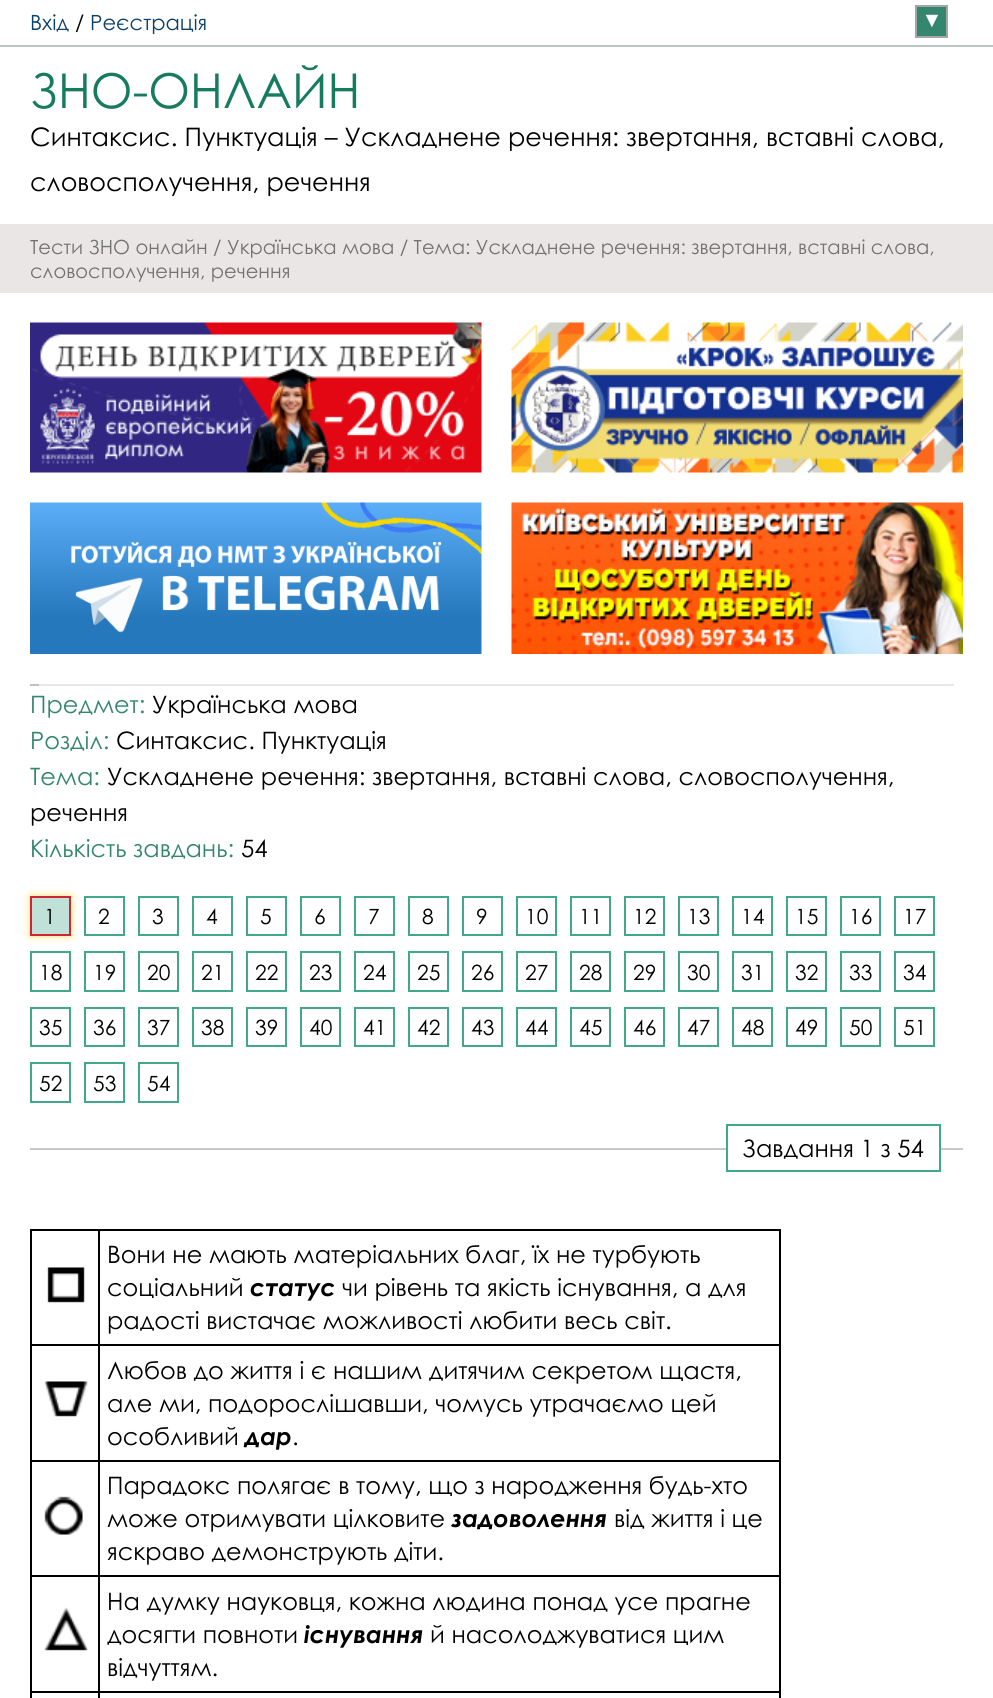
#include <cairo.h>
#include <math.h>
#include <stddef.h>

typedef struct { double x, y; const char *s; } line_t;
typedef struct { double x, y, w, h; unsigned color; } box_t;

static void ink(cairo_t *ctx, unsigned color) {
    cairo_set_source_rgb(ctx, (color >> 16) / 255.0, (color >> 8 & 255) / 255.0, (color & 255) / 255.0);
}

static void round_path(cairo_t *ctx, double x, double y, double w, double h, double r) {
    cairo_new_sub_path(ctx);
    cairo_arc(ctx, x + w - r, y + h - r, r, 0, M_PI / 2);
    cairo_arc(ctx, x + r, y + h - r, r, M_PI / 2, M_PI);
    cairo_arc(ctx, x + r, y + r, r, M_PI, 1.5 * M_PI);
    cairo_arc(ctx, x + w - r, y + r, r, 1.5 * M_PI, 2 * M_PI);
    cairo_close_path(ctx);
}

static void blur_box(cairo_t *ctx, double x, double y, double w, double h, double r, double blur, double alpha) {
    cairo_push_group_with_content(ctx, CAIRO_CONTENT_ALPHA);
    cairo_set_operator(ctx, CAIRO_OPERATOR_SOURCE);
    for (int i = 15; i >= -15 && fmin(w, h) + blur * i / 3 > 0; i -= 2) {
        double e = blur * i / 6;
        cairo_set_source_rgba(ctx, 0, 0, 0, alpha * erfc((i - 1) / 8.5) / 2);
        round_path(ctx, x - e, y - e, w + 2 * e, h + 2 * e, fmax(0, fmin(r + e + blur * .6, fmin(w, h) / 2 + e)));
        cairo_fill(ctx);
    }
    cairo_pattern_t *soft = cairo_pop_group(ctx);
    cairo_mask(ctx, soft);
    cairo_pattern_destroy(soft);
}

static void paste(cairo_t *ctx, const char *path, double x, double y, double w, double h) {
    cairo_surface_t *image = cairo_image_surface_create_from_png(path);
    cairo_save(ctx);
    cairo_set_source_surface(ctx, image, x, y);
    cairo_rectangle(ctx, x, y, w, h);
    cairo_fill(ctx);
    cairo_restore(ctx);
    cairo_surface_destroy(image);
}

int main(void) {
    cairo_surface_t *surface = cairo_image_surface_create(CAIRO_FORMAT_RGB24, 993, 1698);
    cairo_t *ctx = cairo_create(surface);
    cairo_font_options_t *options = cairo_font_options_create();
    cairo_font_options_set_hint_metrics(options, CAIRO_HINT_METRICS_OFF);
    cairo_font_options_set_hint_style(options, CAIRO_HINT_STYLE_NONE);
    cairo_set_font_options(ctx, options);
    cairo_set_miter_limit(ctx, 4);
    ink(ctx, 0xFFFFFF);
    cairo_paint(ctx);
    ink(ctx, 0xB7C7C2);
    cairo_rectangle(ctx, 0, 45, 993, 2);
    cairo_fill(ctx);
    cairo_select_font_face(ctx, "Century Gothic", CAIRO_FONT_SLANT_NORMAL, CAIRO_FONT_WEIGHT_NORMAL);
    cairo_set_font_size(ctx, 21);
    ink(ctx, 0x0C4169);
    cairo_move_to(ctx, 30, 30);
    cairo_show_text(ctx, "Вхід");
    ink(ctx, 0x000000);
    cairo_move_to(ctx, 75, 30);
    cairo_show_text(ctx, "/");
    ink(ctx, 0x0C4169);
    cairo_move_to(ctx, 90, 30);
    cairo_show_text(ctx, "Реєстрація");
    ink(ctx, 0x35866E);
    cairo_rectangle(ctx, 916, 6, 31, 31);
    cairo_fill_preserve(ctx);
    ink(ctx, 0xA5A5A5);
    cairo_stroke(ctx);
    cairo_select_font_face(ctx, "Century Gothic", CAIRO_FONT_SLANT_NORMAL, CAIRO_FONT_WEIGHT_BOLD);
    cairo_set_font_size(ctx, 18);
    ink(ctx, 0xFFFFFF);
    cairo_move_to(ctx, 923, 27);
    cairo_show_text(ctx, "▼");
    cairo_select_font_face(ctx, "Century Gothic", CAIRO_FONT_SLANT_NORMAL, CAIRO_FONT_WEIGHT_NORMAL);
    cairo_set_font_size(ctx, 48);
    ink(ctx, 0x167B5F);
    cairo_move_to(ctx, 30, 108);
    cairo_show_text(ctx, "ЗНО-ОНЛАЙН");
    cairo_set_font_size(ctx, 25.5);
    ink(ctx, 0x000000);
    cairo_move_to(ctx, 30, 146);
    cairo_show_text(ctx, "Синтаксис. Пунктуація – Ускладнене речення: звертання, вставні слова,");
    cairo_move_to(ctx, 30, 191);
    cairo_show_text(ctx, "словосполучення, речення");
    ink(ctx, 0xEBE6E6);
    cairo_rectangle(ctx, 0, 224, 993, 69);
    cairo_fill(ctx);
    cairo_set_font_size(ctx, 19.5);
    ink(ctx, 0x727272);
    cairo_move_to(ctx, 30, 254);
    cairo_show_text(ctx, "Тести ЗНО онлайн / Українська мова / Тема: Ускладнене речення: звертання, вставні слова,");
    cairo_move_to(ctx, 30, 278);
    cairo_show_text(ctx, "словосполучення, речення");
    paste(ctx, "media/1.png", 30, 322, 452, 151);
    paste(ctx, "media/2.png", 511, 322, 452, 151);
    paste(ctx, "media/3.png", 30, 502, 452, 152);
    paste(ctx, "media/4.png", 511, 502, 452, 152);
    ink(ctx, 0xEBE6E6);
    cairo_rectangle(ctx, 39, 684, 915, 2);
    cairo_fill(ctx);
    ink(ctx, 0xC0C0C0);
    cairo_rectangle(ctx, 30, 684, 9, 2);
    cairo_fill(ctx);
    cairo_set_font_size(ctx, 24);
    ink(ctx, 0x35866E);
    cairo_move_to(ctx, 30, 713);
    cairo_show_text(ctx, "Предмет:");
    ink(ctx, 0x000000);
    cairo_move_to(ctx, 152, 713);
    cairo_show_text(ctx, "Українська мова");
    ink(ctx, 0x35866E);
    cairo_move_to(ctx, 30, 749);
    cairo_show_text(ctx, "Розділ:");
    ink(ctx, 0x000000);
    cairo_move_to(ctx, 116, 749);
    cairo_show_text(ctx, "Синтаксис. Пунктуація");
    ink(ctx, 0x35866E);
    cairo_move_to(ctx, 30, 785);
    cairo_show_text(ctx, "Тема:");
    ink(ctx, 0x000000);
    cairo_move_to(ctx, 107, 785);
    cairo_show_text(ctx, "Ускладнене речення: звертання, вставні слова, словосполучення,");
    cairo_move_to(ctx, 30, 821);
    cairo_show_text(ctx, "речення");
    ink(ctx, 0x35866E);
    cairo_move_to(ctx, 30, 857);
    cairo_show_text(ctx, "Кількість завдань:");
    ink(ctx, 0x000000);
    cairo_move_to(ctx, 241, 857);
    cairo_show_text(ctx, "54");
    ink(ctx, 0xFFC800);
    blur_box(ctx, 30, 896, 41, 40, 0, 4, 0.6);
    ink(ctx, 0xC0E1D7);
    cairo_rectangle(ctx, 31, 897, 39, 38);
    cairo_fill_preserve(ctx);
    ink(ctx, 0xD02537);
    cairo_stroke(ctx);
    cairo_set_font_size(ctx, 21);
    ink(ctx, 0x000000);
    cairo_move_to(ctx, 44, 924);
    cairo_show_text(ctx, "1");
    cairo_rectangle(ctx, 85, 897, 39, 38);
    ink(ctx, 0x41A88A);
    cairo_stroke(ctx);
    ink(ctx, 0x000000);
    cairo_move_to(ctx, 98, 924);
    cairo_show_text(ctx, "2");
    cairo_rectangle(ctx, 139, 897, 39, 38);
    ink(ctx, 0x41A88A);
    cairo_stroke(ctx);
    ink(ctx, 0x000000);
    cairo_move_to(ctx, 152, 924);
    cairo_show_text(ctx, "3");
    cairo_rectangle(ctx, 193, 897, 39, 38);
    ink(ctx, 0x41A88A);
    cairo_stroke(ctx);
    ink(ctx, 0x000000);
    cairo_move_to(ctx, 206, 924);
    cairo_show_text(ctx, "4");
    cairo_rectangle(ctx, 247, 897, 39, 38);
    ink(ctx, 0x41A88A);
    cairo_stroke(ctx);
    ink(ctx, 0x000000);
    cairo_move_to(ctx, 260, 924);
    cairo_show_text(ctx, "5");
    cairo_rectangle(ctx, 301, 897, 39, 38);
    ink(ctx, 0x41A88A);
    cairo_stroke(ctx);
    ink(ctx, 0x000000);
    cairo_move_to(ctx, 314, 924);
    cairo_show_text(ctx, "6");
    cairo_rectangle(ctx, 355, 897, 39, 38);
    ink(ctx, 0x41A88A);
    cairo_stroke(ctx);
    ink(ctx, 0x000000);
    cairo_move_to(ctx, 368, 924);
    cairo_show_text(ctx, "7");
    cairo_rectangle(ctx, 409, 897, 39, 38);
    ink(ctx, 0x41A88A);
    cairo_stroke(ctx);
    ink(ctx, 0x000000);
    cairo_move_to(ctx, 422, 924);
    cairo_show_text(ctx, "8");
    cairo_rectangle(ctx, 463, 897, 39, 38);
    ink(ctx, 0x41A88A);
    cairo_stroke(ctx);
    ink(ctx, 0x000000);
    cairo_move_to(ctx, 476, 924);
    cairo_show_text(ctx, "9");
    cairo_rectangle(ctx, 517, 897, 39, 38);
    ink(ctx, 0x41A88A);
    cairo_stroke(ctx);
    ink(ctx, 0x000000);
    cairo_move_to(ctx, 525, 924);
    cairo_show_text(ctx, "10");
    cairo_rectangle(ctx, 571, 897, 39, 38);
    ink(ctx, 0x41A88A);
    cairo_stroke(ctx);
    ink(ctx, 0x000000);
    cairo_move_to(ctx, 579, 924);
    cairo_show_text(ctx, "11");
    cairo_rectangle(ctx, 625, 897, 39, 38);
    ink(ctx, 0x41A88A);
    cairo_stroke(ctx);
    ink(ctx, 0x000000);
    cairo_move_to(ctx, 633, 924);
    cairo_show_text(ctx, "12");
    cairo_rectangle(ctx, 679, 897, 39, 38);
    ink(ctx, 0x41A88A);
    cairo_stroke(ctx);
    ink(ctx, 0x000000);
    cairo_move_to(ctx, 687, 924);
    cairo_show_text(ctx, "13");
    cairo_rectangle(ctx, 733, 897, 39, 38);
    ink(ctx, 0x41A88A);
    cairo_stroke(ctx);
    ink(ctx, 0x000000);
    cairo_move_to(ctx, 741, 924);
    cairo_show_text(ctx, "14");
    cairo_rectangle(ctx, 787, 897, 39, 38);
    ink(ctx, 0x41A88A);
    cairo_stroke(ctx);
    ink(ctx, 0x000000);
    cairo_move_to(ctx, 795, 924);
    cairo_show_text(ctx, "15");
    cairo_rectangle(ctx, 841, 897, 39, 38);
    ink(ctx, 0x41A88A);
    cairo_stroke(ctx);
    ink(ctx, 0x000000);
    cairo_move_to(ctx, 849, 924);
    cairo_show_text(ctx, "16");
    cairo_rectangle(ctx, 895, 897, 39, 38);
    ink(ctx, 0x41A88A);
    cairo_stroke(ctx);
    ink(ctx, 0x000000);
    cairo_move_to(ctx, 903, 924);
    cairo_show_text(ctx, "17");
    cairo_rectangle(ctx, 31, 952, 39, 39);
    ink(ctx, 0x41A88A);
    cairo_stroke(ctx);
    ink(ctx, 0x000000);
    cairo_move_to(ctx, 39, 980);
    cairo_show_text(ctx, "18");
    cairo_rectangle(ctx, 85, 952, 39, 39);
    ink(ctx, 0x41A88A);
    cairo_stroke(ctx);
    ink(ctx, 0x000000);
    cairo_move_to(ctx, 93, 980);
    cairo_show_text(ctx, "19");
    cairo_rectangle(ctx, 139, 952, 39, 39);
    ink(ctx, 0x41A88A);
    cairo_stroke(ctx);
    ink(ctx, 0x000000);
    cairo_move_to(ctx, 147, 980);
    cairo_show_text(ctx, "20");
    cairo_rectangle(ctx, 193, 952, 39, 39);
    ink(ctx, 0x41A88A);
    cairo_stroke(ctx);
    ink(ctx, 0x000000);
    cairo_move_to(ctx, 201, 980);
    cairo_show_text(ctx, "21");
    cairo_rectangle(ctx, 247, 952, 39, 39);
    ink(ctx, 0x41A88A);
    cairo_stroke(ctx);
    ink(ctx, 0x000000);
    cairo_move_to(ctx, 255, 980);
    cairo_show_text(ctx, "22");
    cairo_rectangle(ctx, 301, 952, 39, 39);
    ink(ctx, 0x41A88A);
    cairo_stroke(ctx);
    ink(ctx, 0x000000);
    cairo_move_to(ctx, 309, 980);
    cairo_show_text(ctx, "23");
    cairo_rectangle(ctx, 355, 952, 39, 39);
    ink(ctx, 0x41A88A);
    cairo_stroke(ctx);
    ink(ctx, 0x000000);
    cairo_move_to(ctx, 363, 980);
    cairo_show_text(ctx, "24");
    cairo_rectangle(ctx, 409, 952, 39, 39);
    ink(ctx, 0x41A88A);
    cairo_stroke(ctx);
    ink(ctx, 0x000000);
    cairo_move_to(ctx, 417, 980);
    cairo_show_text(ctx, "25");
    cairo_rectangle(ctx, 463, 952, 39, 39);
    ink(ctx, 0x41A88A);
    cairo_stroke(ctx);
    ink(ctx, 0x000000);
    cairo_move_to(ctx, 471, 980);
    cairo_show_text(ctx, "26");
    cairo_rectangle(ctx, 517, 952, 39, 39);
    ink(ctx, 0x41A88A);
    cairo_stroke(ctx);
    ink(ctx, 0x000000);
    cairo_move_to(ctx, 525, 980);
    cairo_show_text(ctx, "27");
    cairo_rectangle(ctx, 571, 952, 39, 39);
    ink(ctx, 0x41A88A);
    cairo_stroke(ctx);
    ink(ctx, 0x000000);
    cairo_move_to(ctx, 579, 980);
    cairo_show_text(ctx, "28");
    cairo_rectangle(ctx, 625, 952, 39, 39);
    ink(ctx, 0x41A88A);
    cairo_stroke(ctx);
    ink(ctx, 0x000000);
    cairo_move_to(ctx, 633, 980);
    cairo_show_text(ctx, "29");
    cairo_rectangle(ctx, 679, 952, 39, 39);
    ink(ctx, 0x41A88A);
    cairo_stroke(ctx);
    ink(ctx, 0x000000);
    cairo_move_to(ctx, 687, 980);
    cairo_show_text(ctx, "30");
    cairo_rectangle(ctx, 733, 952, 39, 39);
    ink(ctx, 0x41A88A);
    cairo_stroke(ctx);
    ink(ctx, 0x000000);
    cairo_move_to(ctx, 741, 980);
    cairo_show_text(ctx, "31");
    cairo_rectangle(ctx, 787, 952, 39, 39);
    ink(ctx, 0x41A88A);
    cairo_stroke(ctx);
    ink(ctx, 0x000000);
    cairo_move_to(ctx, 795, 980);
    cairo_show_text(ctx, "32");
    cairo_rectangle(ctx, 841, 952, 39, 39);
    ink(ctx, 0x41A88A);
    cairo_stroke(ctx);
    ink(ctx, 0x000000);
    cairo_move_to(ctx, 849, 980);
    cairo_show_text(ctx, "33");
    cairo_rectangle(ctx, 895, 952, 39, 39);
    ink(ctx, 0x41A88A);
    cairo_stroke(ctx);
    ink(ctx, 0x000000);
    cairo_move_to(ctx, 903, 980);
    cairo_show_text(ctx, "34");
    cairo_rectangle(ctx, 31, 1008, 39, 38);
    ink(ctx, 0x41A88A);
    cairo_stroke(ctx);
    ink(ctx, 0x000000);
    cairo_move_to(ctx, 39, 1035);
    cairo_show_text(ctx, "35");
    cairo_rectangle(ctx, 85, 1008, 39, 38);
    ink(ctx, 0x41A88A);
    cairo_stroke(ctx);
    ink(ctx, 0x000000);
    cairo_move_to(ctx, 93, 1035);
    cairo_show_text(ctx, "36");
    cairo_rectangle(ctx, 139, 1008, 39, 38);
    ink(ctx, 0x41A88A);
    cairo_stroke(ctx);
    ink(ctx, 0x000000);
    cairo_move_to(ctx, 147, 1035);
    cairo_show_text(ctx, "37");
    cairo_rectangle(ctx, 193, 1008, 39, 38);
    ink(ctx, 0x41A88A);
    cairo_stroke(ctx);
    ink(ctx, 0x000000);
    cairo_move_to(ctx, 201, 1035);
    cairo_show_text(ctx, "38");
    cairo_rectangle(ctx, 247, 1008, 39, 38);
    ink(ctx, 0x41A88A);
    cairo_stroke(ctx);
    ink(ctx, 0x000000);
    cairo_move_to(ctx, 255, 1035);
    cairo_show_text(ctx, "39");
    cairo_rectangle(ctx, 301, 1008, 39, 38);
    ink(ctx, 0x41A88A);
    cairo_stroke(ctx);
    ink(ctx, 0x000000);
    cairo_move_to(ctx, 309, 1035);
    cairo_show_text(ctx, "40");
    cairo_rectangle(ctx, 355, 1008, 39, 38);
    ink(ctx, 0x41A88A);
    cairo_stroke(ctx);
    ink(ctx, 0x000000);
    cairo_move_to(ctx, 363, 1035);
    cairo_show_text(ctx, "41");
    cairo_rectangle(ctx, 409, 1008, 39, 38);
    ink(ctx, 0x41A88A);
    cairo_stroke(ctx);
    ink(ctx, 0x000000);
    cairo_move_to(ctx, 417, 1035);
    cairo_show_text(ctx, "42");
    cairo_rectangle(ctx, 463, 1008, 39, 38);
    ink(ctx, 0x41A88A);
    cairo_stroke(ctx);
    ink(ctx, 0x000000);
    cairo_move_to(ctx, 471, 1035);
    cairo_show_text(ctx, "43");
    cairo_rectangle(ctx, 517, 1008, 39, 38);
    ink(ctx, 0x41A88A);
    cairo_stroke(ctx);
    ink(ctx, 0x000000);
    cairo_move_to(ctx, 525, 1035);
    cairo_show_text(ctx, "44");
    cairo_rectangle(ctx, 571, 1008, 39, 38);
    ink(ctx, 0x41A88A);
    cairo_stroke(ctx);
    ink(ctx, 0x000000);
    cairo_move_to(ctx, 579, 1035);
    cairo_show_text(ctx, "45");
    cairo_rectangle(ctx, 625, 1008, 39, 38);
    ink(ctx, 0x41A88A);
    cairo_stroke(ctx);
    ink(ctx, 0x000000);
    cairo_move_to(ctx, 633, 1035);
    cairo_show_text(ctx, "46");
    cairo_rectangle(ctx, 679, 1008, 39, 38);
    ink(ctx, 0x41A88A);
    cairo_stroke(ctx);
    ink(ctx, 0x000000);
    cairo_move_to(ctx, 687, 1035);
    cairo_show_text(ctx, "47");
    cairo_rectangle(ctx, 733, 1008, 39, 38);
    ink(ctx, 0x41A88A);
    cairo_stroke(ctx);
    ink(ctx, 0x000000);
    cairo_move_to(ctx, 741, 1035);
    cairo_show_text(ctx, "48");
    cairo_rectangle(ctx, 787, 1008, 39, 38);
    ink(ctx, 0x41A88A);
    cairo_stroke(ctx);
    ink(ctx, 0x000000);
    cairo_move_to(ctx, 795, 1035);
    cairo_show_text(ctx, "49");
    cairo_rectangle(ctx, 841, 1008, 39, 38);
    ink(ctx, 0x41A88A);
    cairo_stroke(ctx);
    ink(ctx, 0x000000);
    cairo_move_to(ctx, 849, 1035);
    cairo_show_text(ctx, "50");
    cairo_rectangle(ctx, 895, 1008, 39, 38);
    ink(ctx, 0x41A88A);
    cairo_stroke(ctx);
    ink(ctx, 0x000000);
    cairo_move_to(ctx, 903, 1035);
    cairo_show_text(ctx, "51");
    cairo_rectangle(ctx, 31, 1063, 39, 39);
    ink(ctx, 0x41A88A);
    cairo_stroke(ctx);
    ink(ctx, 0x000000);
    cairo_move_to(ctx, 39, 1091);
    cairo_show_text(ctx, "52");
    cairo_rectangle(ctx, 85, 1063, 39, 39);
    ink(ctx, 0x41A88A);
    cairo_stroke(ctx);
    ink(ctx, 0x000000);
    cairo_move_to(ctx, 93, 1091);
    cairo_show_text(ctx, "53");
    cairo_rectangle(ctx, 139, 1063, 39, 39);
    ink(ctx, 0x41A88A);
    cairo_stroke(ctx);
    ink(ctx, 0x000000);
    cairo_move_to(ctx, 147, 1091);
    cairo_show_text(ctx, "54");
    ink(ctx, 0xC8C8C8);
    cairo_rectangle(ctx, 30, 1148, 933, 2);
    cairo_fill(ctx);
    ink(ctx, 0xFFFFFF);
    cairo_rectangle(ctx, 728, 1148, 211, 2);
    cairo_fill(ctx);
    cairo_rectangle(ctx, 727, 1125, 213, 46);
    ink(ctx, 0x41A88A);
    cairo_stroke(ctx);
    cairo_set_font_size(ctx, 24);
    ink(ctx, 0x000000);
    cairo_move_to(ctx, 742, 1157);
    cairo_show_text(ctx, "Завдання 1 з 54");
    {
        static const box_t items[] = {
            {98, 1229, 682, 2, 0x000000},
            {98, 1344, 682, 2, 0x000000},
            {98, 1460, 682, 2, 0x000000},
            {98, 1575, 682, 2, 0x000000},
            {98, 1691, 682, 2, 0x000000},
            {98, 1691, 2, 7, 0x000000},
            {30, 1691, 69, 2, 0x000000},
            {98, 1575, 2, 117, 0x000000},
            {30, 1575, 69, 2, 0x000000},
            {98, 1460, 2, 117, 0x000000},
            {30, 1460, 69, 2, 0x000000},
            {98, 1344, 2, 117, 0x000000},
            {30, 1344, 69, 2, 0x000000},
            {98, 1229, 2, 117, 0x000000},
            {30, 1229, 69, 2, 0x000000},
            {30, 1691, 2, 7, 0x000000},
            {30, 1575, 2, 117, 0x000000},
            {30, 1460, 2, 117, 0x000000},
            {30, 1344, 2, 117, 0x000000},
            {30, 1229, 2, 117, 0x000000},
        };
        for (size_t i = 0; i < sizeof items / sizeof *items; i++) {
            ink(ctx, items[i].color);
            cairo_rectangle(ctx, items[i].x, items[i].y, items[i].w, items[i].h);
            cairo_fill(ctx);
        }
    }
    paste(ctx, "media/5.png", 47, 1267, 38, 36);
    {
        static const box_t items[] = {
            {779, 1691, 2, 7, 0x000000},
            {779, 1575, 2, 117, 0x000000},
            {779, 1460, 2, 117, 0x000000},
            {779, 1344, 2, 117, 0x000000},
            {779, 1229, 2, 117, 0x000000},
        };
        for (size_t i = 0; i < sizeof items / sizeof *items; i++) {
            ink(ctx, items[i].color);
            cairo_rectangle(ctx, items[i].x, items[i].y, items[i].w, items[i].h);
            cairo_fill(ctx);
        }
    }
    cairo_move_to(ctx, 107, 1263);
    cairo_show_text(ctx, "Вони не мають матеріальних благ, їх не турбують");
    cairo_move_to(ctx, 107, 1296);
    cairo_show_text(ctx, "соціальний");
    cairo_select_font_face(ctx, "Century Gothic", CAIRO_FONT_SLANT_ITALIC, CAIRO_FONT_WEIGHT_BOLD);
    cairo_move_to(ctx, 250, 1296);
    cairo_show_text(ctx, "статус");
    cairo_select_font_face(ctx, "Century Gothic", CAIRO_FONT_SLANT_NORMAL, CAIRO_FONT_WEIGHT_NORMAL);
    cairo_move_to(ctx, 342, 1296);
    cairo_show_text(ctx, "чи рівень та якість існування, а для");
    cairo_move_to(ctx, 107, 1329);
    cairo_show_text(ctx, "радості вистачає можливості любити весь світ.");
    paste(ctx, "media/6.png", 44, 1381, 44, 36);
    {
        static const line_t items[] = {
            {107, 1379, "Любов до життя і є нашим дитячим секретом щастя,"},
            {107, 1412, "але ми, подорослішавши, чомусь утрачаємо цей"},
            {107, 1445, "особливий"},
        };
        for (size_t i = 0; i < sizeof items / sizeof *items; i++) {
            cairo_move_to(ctx, items[i].x, items[i].y);
            cairo_show_text(ctx, items[i].s);
        }
    }
    cairo_select_font_face(ctx, "Century Gothic", CAIRO_FONT_SLANT_ITALIC, CAIRO_FONT_WEIGHT_BOLD);
    cairo_move_to(ctx, 245, 1445);
    cairo_show_text(ctx, "дар");
    cairo_select_font_face(ctx, "Century Gothic", CAIRO_FONT_SLANT_NORMAL, CAIRO_FONT_WEIGHT_NORMAL);
    cairo_move_to(ctx, 292, 1445);
    cairo_show_text(ctx, ".");
    paste(ctx, "media/7.png", 44, 1496, 39, 39);
    cairo_move_to(ctx, 107, 1494);
    cairo_show_text(ctx, "Парадокс полягає в тому, що з народження будь-хто");
    cairo_move_to(ctx, 107, 1527);
    cairo_show_text(ctx, "може отримувати цілковите");
    cairo_select_font_face(ctx, "Century Gothic", CAIRO_FONT_SLANT_ITALIC, CAIRO_FONT_WEIGHT_BOLD);
    cairo_move_to(ctx, 451, 1527);
    cairo_show_text(ctx, "задоволення");
    cairo_select_font_face(ctx, "Century Gothic", CAIRO_FONT_SLANT_NORMAL, CAIRO_FONT_WEIGHT_NORMAL);
    cairo_move_to(ctx, 614, 1527);
    cairo_show_text(ctx, "від життя і це");
    cairo_move_to(ctx, 107, 1560);
    cairo_show_text(ctx, "яскраво демонструють діти.");
    paste(ctx, "media/8.png", 44, 1607, 44, 44);
    cairo_move_to(ctx, 107, 1610);
    cairo_show_text(ctx, "На думку науковця, кожна людина понад усе прагне");
    cairo_move_to(ctx, 107, 1643);
    cairo_show_text(ctx, "досягти повноти");
    cairo_select_font_face(ctx, "Century Gothic", CAIRO_FONT_SLANT_ITALIC, CAIRO_FONT_WEIGHT_BOLD);
    cairo_move_to(ctx, 304, 1643);
    cairo_show_text(ctx, "існування");
    cairo_select_font_face(ctx, "Century Gothic", CAIRO_FONT_SLANT_NORMAL, CAIRO_FONT_WEIGHT_NORMAL);
    cairo_move_to(ctx, 430, 1643);
    cairo_show_text(ctx, "й насолоджуватися цим");
    cairo_move_to(ctx, 107, 1676);
    cairo_show_text(ctx, "відчуттям.");
    cairo_surface_write_to_png(surface, "image.png");
    cairo_font_options_destroy(options);
    cairo_destroy(ctx);
    cairo_surface_destroy(surface);
    return 0;
}
